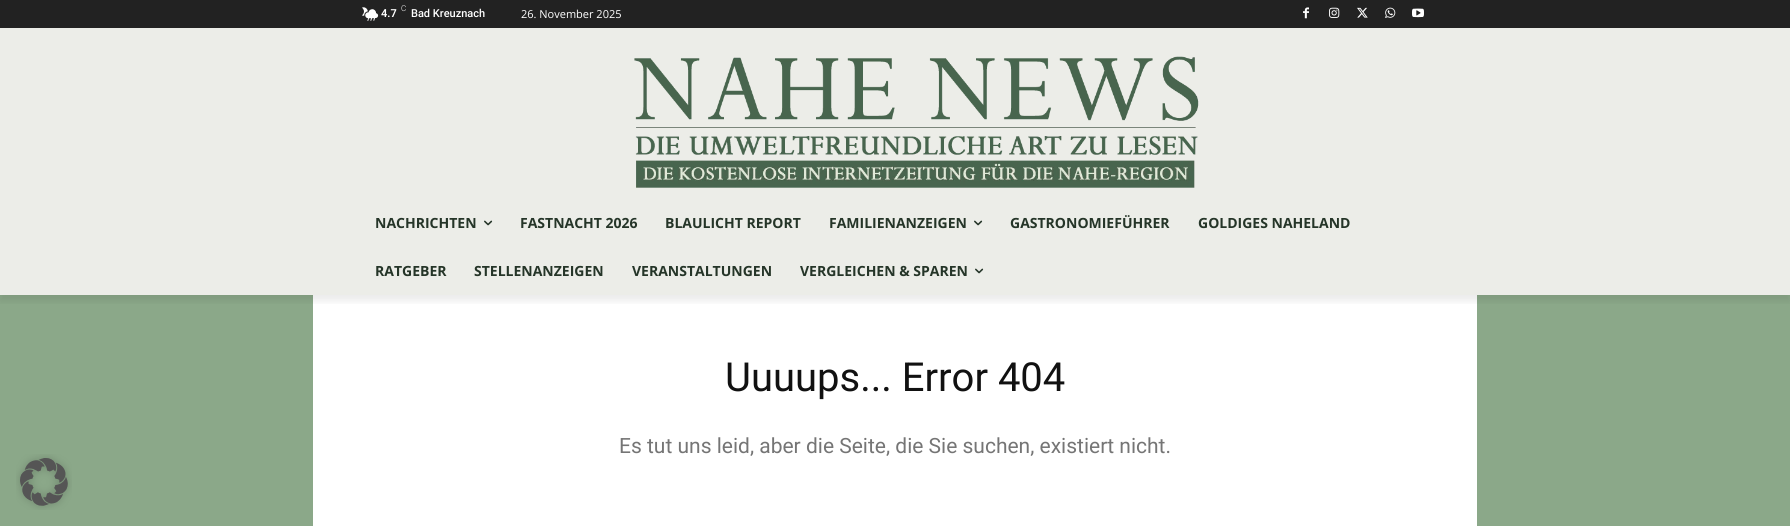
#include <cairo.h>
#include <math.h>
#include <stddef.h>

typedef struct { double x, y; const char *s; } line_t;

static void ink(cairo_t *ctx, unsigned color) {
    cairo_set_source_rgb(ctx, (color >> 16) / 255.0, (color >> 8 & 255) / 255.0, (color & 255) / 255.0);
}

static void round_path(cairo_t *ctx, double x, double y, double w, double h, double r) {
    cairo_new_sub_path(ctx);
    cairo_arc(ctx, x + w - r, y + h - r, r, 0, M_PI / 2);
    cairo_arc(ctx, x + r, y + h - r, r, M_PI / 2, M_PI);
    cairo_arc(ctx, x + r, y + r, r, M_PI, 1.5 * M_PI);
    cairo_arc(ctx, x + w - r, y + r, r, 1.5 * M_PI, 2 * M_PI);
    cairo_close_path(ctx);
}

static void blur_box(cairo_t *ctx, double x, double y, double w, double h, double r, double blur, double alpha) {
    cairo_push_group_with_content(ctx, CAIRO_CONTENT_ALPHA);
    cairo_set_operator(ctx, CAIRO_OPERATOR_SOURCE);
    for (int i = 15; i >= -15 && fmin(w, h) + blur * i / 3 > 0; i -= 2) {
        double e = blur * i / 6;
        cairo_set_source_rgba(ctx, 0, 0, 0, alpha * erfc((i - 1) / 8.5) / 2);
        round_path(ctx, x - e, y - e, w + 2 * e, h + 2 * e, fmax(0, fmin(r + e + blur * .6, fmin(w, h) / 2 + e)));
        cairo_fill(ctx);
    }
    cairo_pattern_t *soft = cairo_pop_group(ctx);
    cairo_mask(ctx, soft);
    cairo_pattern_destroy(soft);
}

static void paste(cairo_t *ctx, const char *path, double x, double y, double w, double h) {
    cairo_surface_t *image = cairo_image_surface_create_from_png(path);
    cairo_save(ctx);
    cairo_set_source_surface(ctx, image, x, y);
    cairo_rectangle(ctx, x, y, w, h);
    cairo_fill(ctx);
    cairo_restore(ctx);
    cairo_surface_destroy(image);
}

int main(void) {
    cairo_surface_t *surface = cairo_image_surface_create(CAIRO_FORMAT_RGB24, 1790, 526);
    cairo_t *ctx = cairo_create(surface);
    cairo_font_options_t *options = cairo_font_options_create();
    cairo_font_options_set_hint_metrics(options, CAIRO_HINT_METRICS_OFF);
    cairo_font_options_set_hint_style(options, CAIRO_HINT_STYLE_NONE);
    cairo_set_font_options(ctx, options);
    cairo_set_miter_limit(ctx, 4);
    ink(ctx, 0x8BA889);
    cairo_paint(ctx);
    ink(ctx, 0x222222);
    cairo_rectangle(ctx, 0, 0, 1790, 28);
    cairo_fill(ctx);
    paste(ctx, "media/1.png", 362, 7, 17, 14);
    paste(ctx, "media/2.png", 1303, 7, 6, 12);
    paste(ctx, "media/3.png", 1329, 7, 11, 11);
    paste(ctx, "media/4.png", 1357, 7, 11, 11);
    paste(ctx, "media/5.png", 1385, 7, 11, 11);
    paste(ctx, "media/6.png", 1412, 8, 12, 10);
    ink(ctx, 0xECEDE8);
    cairo_rectangle(ctx, 0, 28, 1790, 267);
    cairo_fill(ctx);
    paste(ctx, "media/7.png", 634, 56, 565, 132);
    ink(ctx, 0xFFFFFF);
    cairo_rectangle(ctx, 313, 295, 1164, 231);
    cairo_fill(ctx);
    cairo_save(ctx);
    cairo_rectangle(ctx, 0, 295, 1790, 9);
    cairo_clip(ctx);
    ink(ctx, 0x000000);
    blur_box(ctx, 0, 6, 1790, 295, 0, 4, 0.08);
    cairo_restore(ctx);
    cairo_select_font_face(ctx, "Roboto SemiBold", CAIRO_FONT_SLANT_NORMAL, CAIRO_FONT_WEIGHT_NORMAL);
    cairo_set_font_size(ctx, 11);
    cairo_move_to(ctx, 381, 17);
    cairo_show_text(ctx, "4.7");
    cairo_select_font_face(ctx, "Roboto Light", CAIRO_FONT_SLANT_NORMAL, CAIRO_FONT_WEIGHT_NORMAL);
    cairo_set_font_size(ctx, 8);
    cairo_move_to(ctx, 401, 11);
    cairo_show_text(ctx, "C");
    cairo_select_font_face(ctx, "Roboto Medium", CAIRO_FONT_SLANT_NORMAL, CAIRO_FONT_WEIGHT_NORMAL);
    cairo_set_font_size(ctx, 11);
    cairo_move_to(ctx, 411, 17);
    cairo_show_text(ctx, "Bad Kreuznach");
    cairo_select_font_face(ctx, "Open Sans", CAIRO_FONT_SLANT_NORMAL, CAIRO_FONT_WEIGHT_NORMAL);
    cairo_move_to(ctx, 521, 18);
    cairo_show_text(ctx, "26. November 2025");
    cairo_select_font_face(ctx, "Open Sans", CAIRO_FONT_SLANT_NORMAL, CAIRO_FONT_WEIGHT_BOLD);
    cairo_set_font_size(ctx, 14);
    ink(ctx, 0x253528);
    cairo_move_to(ctx, 375, 228);
    cairo_show_text(ctx, "NACHRICHTEN");
    paste(ctx, "media/8.png", 484, 220, 9, 6);
    {
        static const line_t items[] = {
            {520, 228, "FASTNACHT 2026"},
            {665, 228, "BLAULICHT REPORT"},
            {829, 228, "FAMILIENANZEIGEN"},
        };
        for (size_t i = 0; i < sizeof items / sizeof *items; i++) {
            cairo_move_to(ctx, items[i].x, items[i].y);
            cairo_show_text(ctx, items[i].s);
        }
    }
    paste(ctx, "media/8.png", 974, 220, 9, 6);
    {
        static const line_t items[] = {
            {1010, 228, "GASTRONOMIEFÜHRER"},
            {1198, 228, "GOLDIGES NAHELAND"},
            {375, 276, "RATGEBER"},
            {474, 276, "STELLENANZEIGEN"},
            {632, 276, "VERANSTALTUNGEN"},
            {800, 276, "VERGLEICHEN & SPAREN"},
        };
        for (size_t i = 0; i < sizeof items / sizeof *items; i++) {
            cairo_move_to(ctx, items[i].x, items[i].y);
            cairo_show_text(ctx, items[i].s);
        }
    }
    paste(ctx, "media/8.png", 975, 268, 9, 6);
    cairo_select_font_face(ctx, "Roboto", CAIRO_FONT_SLANT_NORMAL, CAIRO_FONT_WEIGHT_NORMAL);
    cairo_set_font_size(ctx, 40);
    ink(ctx, 0x111111);
    cairo_move_to(ctx, 725, 391);
    cairo_show_text(ctx, "Uuuups... Error 404");
    cairo_set_font_size(ctx, 21);
    ink(ctx, 0x757575);
    cairo_move_to(ctx, 619, 453);
    cairo_show_text(ctx, "Es tut uns leid, aber die Seite, die Sie suchen, existiert nicht.");
    paste(ctx, "media/9.png", 16, 454, 56, 56);
    cairo_surface_write_to_png(surface, "image.png");
    cairo_font_options_destroy(options);
    cairo_destroy(ctx);
    cairo_surface_destroy(surface);
    return 0;
}
